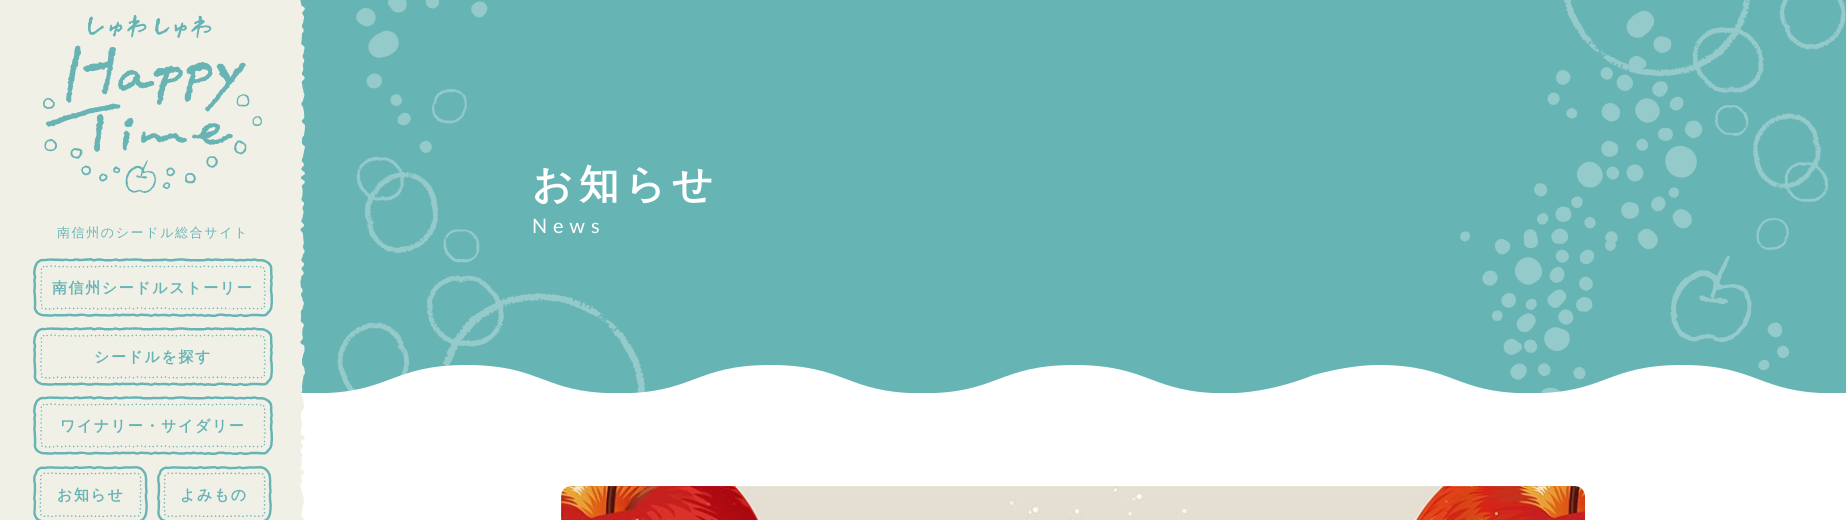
#include <cairo.h>
#include <math.h>
#include <stddef.h>


static void ink(cairo_t *ctx, unsigned color) {
    cairo_set_source_rgb(ctx, (color >> 16) / 255.0, (color >> 8 & 255) / 255.0, (color & 255) / 255.0);
}

static void write_spaced(cairo_t *ctx, double x, double y, const char *s, double letter, double word) {
    cairo_move_to(ctx, x, y);
    while (*s) {
        char ch[5] = {0};
        int n = 0;
        do ch[n++] = *s++; while ((*s & 0xC0) == 0x80);
        cairo_show_text(ctx, ch);
        cairo_rel_move_to(ctx, letter + word * (*ch == ' '), 0);
    }
}

static void paste(cairo_t *ctx, const char *path, double x, double y, double w, double h) {
    cairo_surface_t *image = cairo_image_surface_create_from_png(path);
    cairo_save(ctx);
    cairo_set_source_surface(ctx, image, x, y);
    cairo_rectangle(ctx, x, y, w, h);
    cairo_fill(ctx);
    cairo_restore(ctx);
    cairo_surface_destroy(image);
}

int main(void) {
    cairo_surface_t *surface = cairo_image_surface_create(CAIRO_FORMAT_RGB24, 1846, 520);
    cairo_t *ctx = cairo_create(surface);
    cairo_font_options_t *options = cairo_font_options_create();
    cairo_font_options_set_hint_metrics(options, CAIRO_HINT_METRICS_OFF);
    cairo_font_options_set_hint_style(options, CAIRO_HINT_STYLE_NONE);
    cairo_set_font_options(ctx, options);
    cairo_set_miter_limit(ctx, 4);
    ink(ctx, 0xFFFFFF);
    cairo_paint(ctx);
    ink(ctx, 0x67B4B5);
    cairo_rectangle(ctx, 300, 0, 1546, 393);
    cairo_fill(ctx);
    paste(ctx, "media/1.png", 337, 0, 1509, 393);
    cairo_select_font_face(ctx, "WenQuanYi Zen Hei", CAIRO_FONT_SLANT_NORMAL, CAIRO_FONT_WEIGHT_BOLD);
    cairo_set_font_size(ctx, 40);
    ink(ctx, 0xFFFFFF);
    write_spaced(ctx, 532, 198, "お知らせ", 6, 0);
    cairo_select_font_face(ctx, "Lato", CAIRO_FONT_SLANT_NORMAL, CAIRO_FONT_WEIGHT_NORMAL);
    cairo_set_font_size(ctx, 20);
    write_spaced(ctx, 532, 233, "News", 6, 0);
    paste(ctx, "media/2.png", 328, 365, 1492, 28);
    paste(ctx, "media/3.png", 561, 486, 1024, 34);
    paste(ctx, "media/4.png", 0, 0, 305, 520);
    paste(ctx, "media/5.png", 43, 15, 219, 178);
    cairo_select_font_face(ctx, "WenQuanYi Zen Hei Medium", CAIRO_FONT_SLANT_NORMAL, CAIRO_FONT_WEIGHT_NORMAL);
    cairo_set_font_size(ctx, 13);
    ink(ctx, 0x68B4B5);
    write_spaced(ctx, 57, 237, "南信州のシードル総合サイト", 1.6, 0);
    paste(ctx, "media/6.png", 33, 258, 240, 59);
    cairo_select_font_face(ctx, "WenQuanYi Zen Hei", CAIRO_FONT_SLANT_NORMAL, CAIRO_FONT_WEIGHT_BOLD);
    cairo_set_font_size(ctx, 15);
    write_spaced(ctx, 52, 293, "南信州シードルストーリー", 1.6, 0);
    paste(ctx, "media/6.png", 33, 327, 240, 59);
    write_spaced(ctx, 94, 362, "シードルを探す", 1.6, 0);
    paste(ctx, "media/6.png", 33, 396, 240, 59);
    write_spaced(ctx, 60, 431, "ワイナリー・サイダリー", 1.6, 0);
    paste(ctx, "media/7.png", 33, 466, 115, 54);
    write_spaced(ctx, 57, 500, "お知らせ", 1.6, 0);
    paste(ctx, "media/7.png", 157, 466, 115, 54);
    write_spaced(ctx, 180, 500, "よみもの", 1.6, 0);
    cairo_surface_write_to_png(surface, "image.png");
    cairo_font_options_destroy(options);
    cairo_destroy(ctx);
    cairo_surface_destroy(surface);
    return 0;
}
